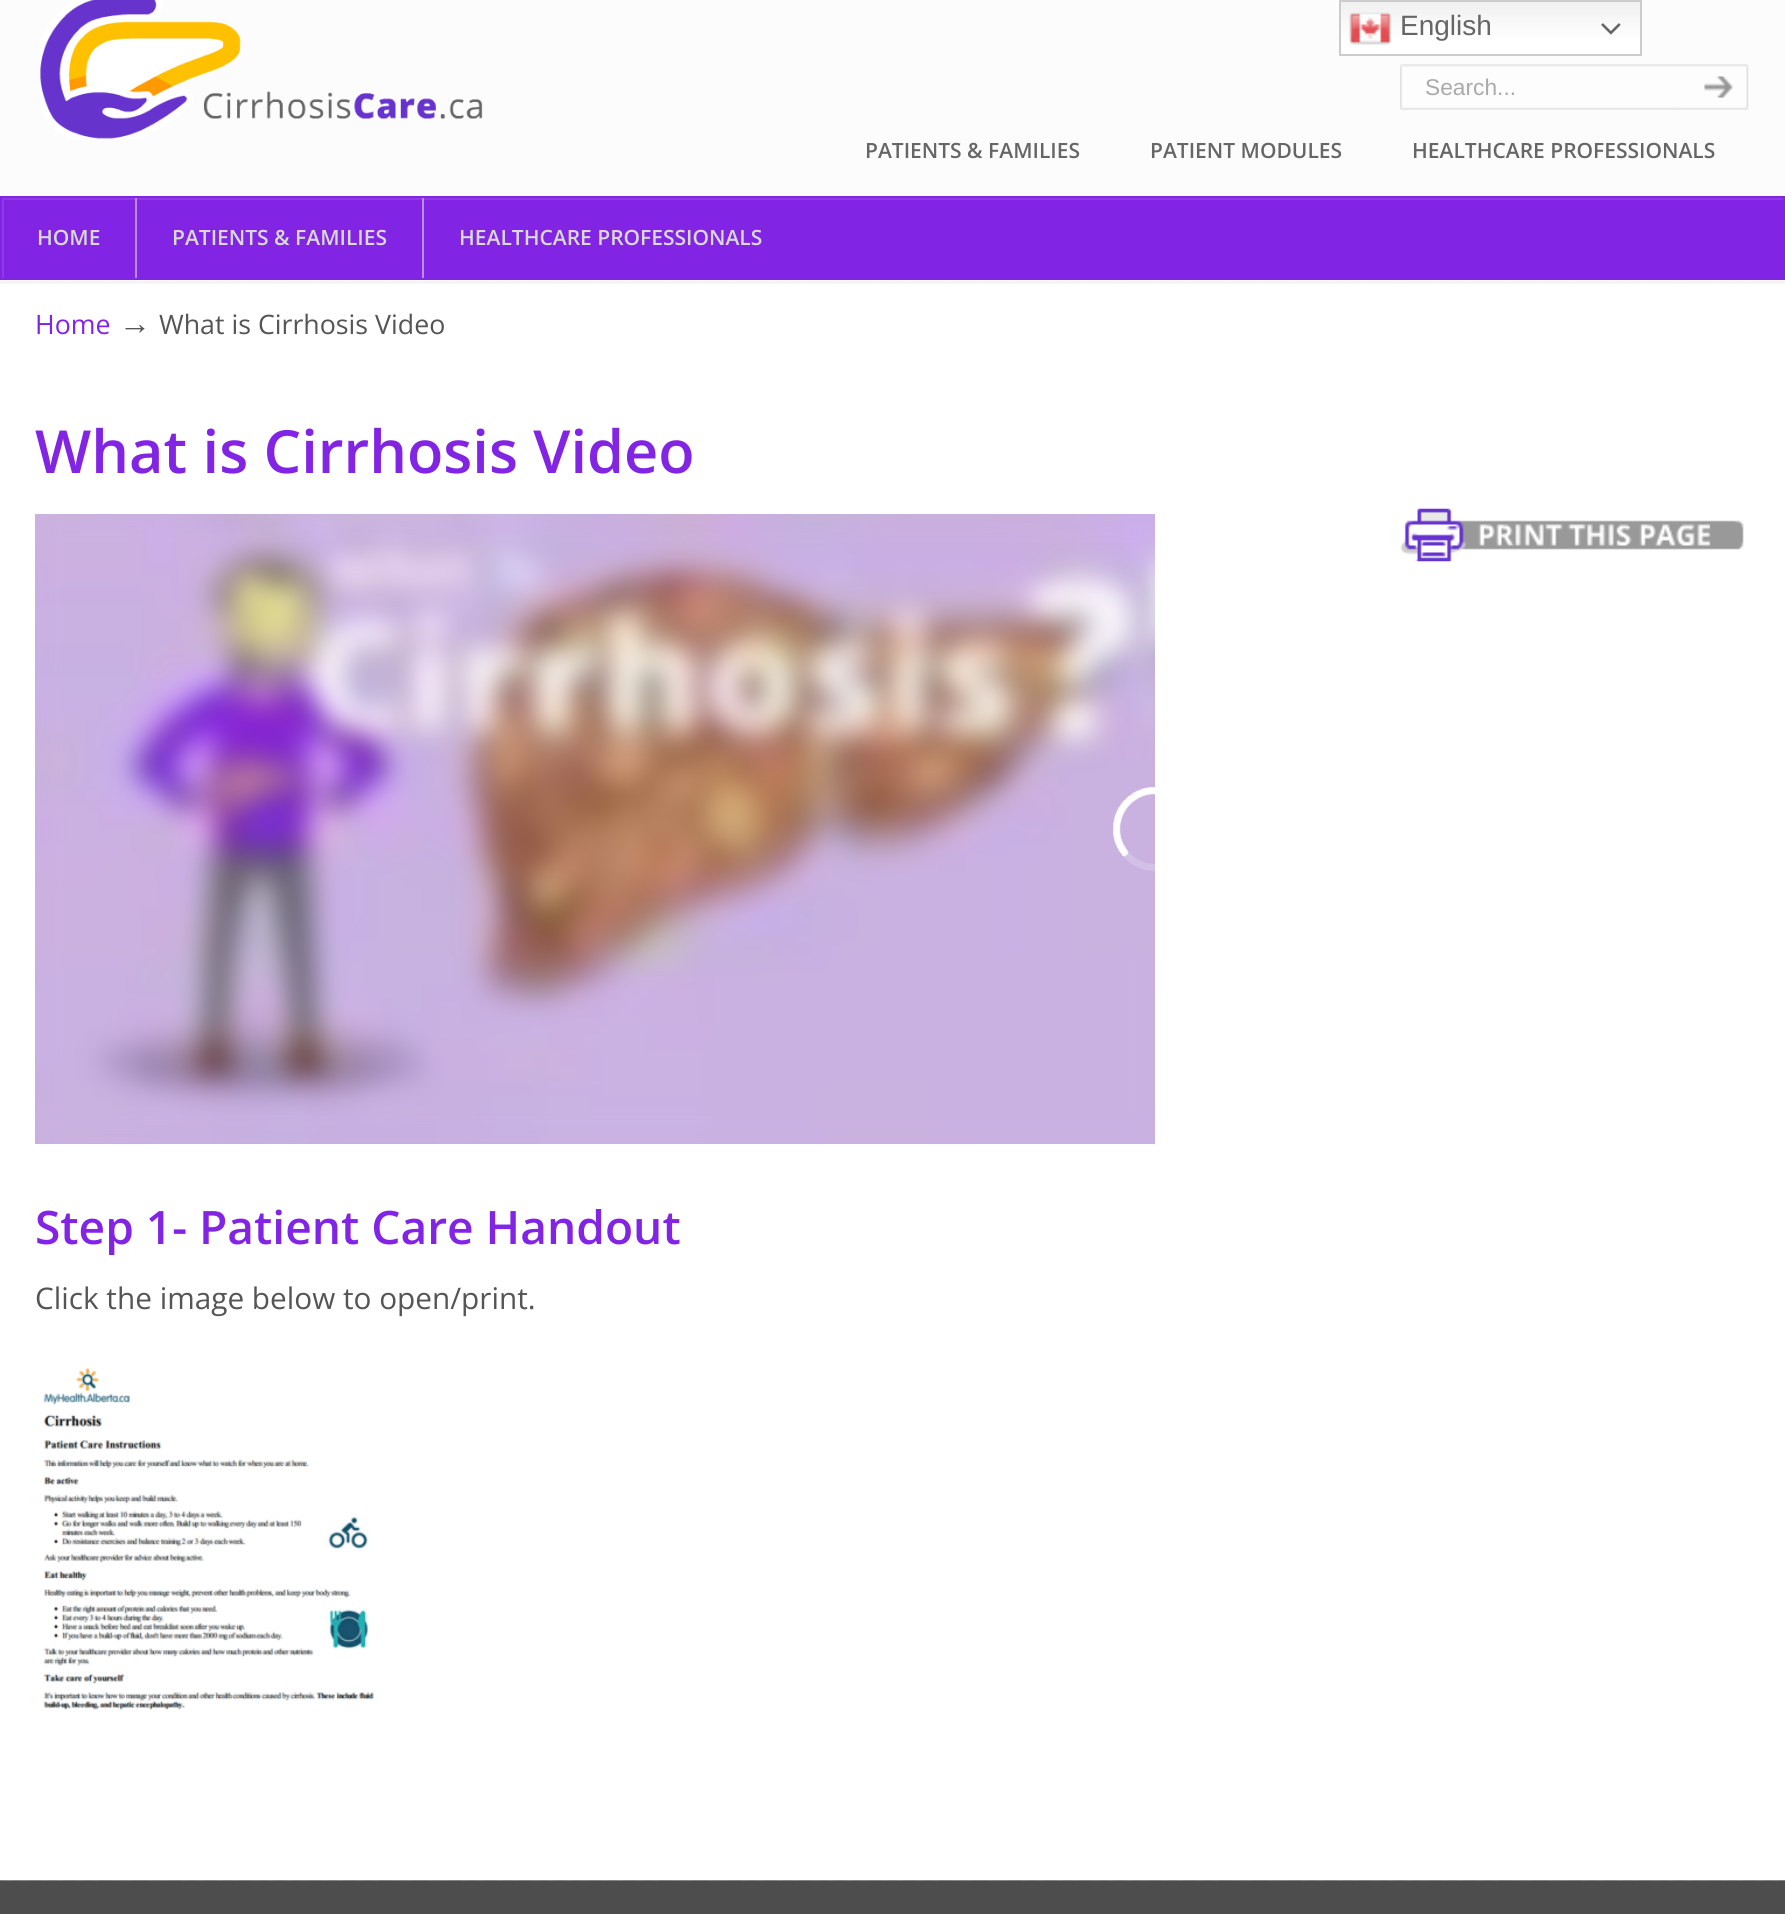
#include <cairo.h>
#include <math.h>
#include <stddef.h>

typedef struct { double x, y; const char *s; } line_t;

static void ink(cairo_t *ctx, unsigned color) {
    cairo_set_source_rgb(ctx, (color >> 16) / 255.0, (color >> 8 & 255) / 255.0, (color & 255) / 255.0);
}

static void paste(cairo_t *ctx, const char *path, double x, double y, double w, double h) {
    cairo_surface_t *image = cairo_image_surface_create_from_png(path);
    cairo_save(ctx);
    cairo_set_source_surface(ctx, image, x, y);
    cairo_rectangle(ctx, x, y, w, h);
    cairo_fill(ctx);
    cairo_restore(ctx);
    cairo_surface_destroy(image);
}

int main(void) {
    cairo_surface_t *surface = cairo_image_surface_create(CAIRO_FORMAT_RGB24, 1785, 1914);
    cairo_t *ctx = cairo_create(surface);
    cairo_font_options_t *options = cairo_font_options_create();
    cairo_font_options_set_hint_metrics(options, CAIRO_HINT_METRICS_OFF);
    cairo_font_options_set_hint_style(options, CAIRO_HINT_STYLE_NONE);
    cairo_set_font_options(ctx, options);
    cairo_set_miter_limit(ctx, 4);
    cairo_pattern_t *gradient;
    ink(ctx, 0x4D4D4D);
    cairo_paint(ctx);
    ink(ctx, 0xFCFCFC);
    cairo_rectangle(ctx, 0, 0, 1785, 196);
    cairo_fill(ctx);
    gradient = cairo_pattern_create_linear(1490, 0, 1490, 56);
    cairo_pattern_add_color_stop_rgba(gradient, 0, 0.937, 0.937, 0.937, 1);
    cairo_pattern_add_color_stop_rgba(gradient, 0.7, 1, 1, 1, 1);
    cairo_set_source(ctx, gradient);
    cairo_pattern_destroy(gradient);
    cairo_rectangle(ctx, 1341, 2, 299, 52);
    cairo_fill(ctx);
    cairo_rectangle(ctx, 1340, 1, 301, 54);
    ink(ctx, 0xCCCCCC);
    cairo_stroke(ctx);
    paste(ctx, "media/1.png", 1349, 12, 43, 33);
    cairo_select_font_face(ctx, "Liberation Sans", CAIRO_FONT_SLANT_NORMAL, CAIRO_FONT_WEIGHT_NORMAL);
    cairo_set_font_size(ctx, 28);
    ink(ctx, 0x666666);
    cairo_move_to(ctx, 1400, 35);
    cairo_show_text(ctx, "English");
    paste(ctx, "media/2.png", 1601, 23, 20, 12);
    paste(ctx, "media/3.png", 40, 0, 443, 139);
    paste(ctx, "media/4.png", 1400, 64, 279, 46);
    cairo_set_font_size(ctx, 22.75);
    ink(ctx, 0xAAAAAA);
    cairo_move_to(ctx, 1425, 95);
    cairo_show_text(ctx, "Search...");
    paste(ctx, "media/5.png", 1678, 64, 71, 46);
    cairo_select_font_face(ctx, "Open Sans SemiBold", CAIRO_FONT_SLANT_NORMAL, CAIRO_FONT_WEIGHT_NORMAL);
    cairo_set_font_size(ctx, 21);
    ink(ctx, 0x666666);
    {
        static const line_t items[] = {
            {865, 158, "PATIENTS & FAMILIES"},
            {1150, 158, "PATIENT MODULES"},
            {1412, 158, "HEALTHCARE PROFESSIONALS"},
        };
        for (size_t i = 0; i < sizeof items / sizeof *items; i++) {
            cairo_move_to(ctx, items[i].x, items[i].y);
            cairo_show_text(ctx, items[i].s);
        }
    }
    ink(ctx, 0x8224E3);
    cairo_rectangle(ctx, 0, 196, 1785, 84);
    cairo_fill(ctx);
    cairo_save(ctx);
    cairo_rectangle(ctx, 2, 198, 1781, 80);
    cairo_clip(ctx);
    ink(ctx, 0x8F3AE6);
    cairo_set_fill_rule(ctx, CAIRO_FILL_RULE_EVEN_ODD);
    cairo_new_path(ctx);
    cairo_move_to(ctx, -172, 24);
    cairo_line_to(ctx, 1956, 24);
    cairo_line_to(ctx, 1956, 452);
    cairo_line_to(ctx, -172, 452);
    cairo_close_path(ctx);
    cairo_move_to(ctx, 4, 200);
    cairo_line_to(ctx, 1785, 200);
    cairo_line_to(ctx, 1785, 280);
    cairo_line_to(ctx, 4, 280);
    cairo_close_path(ctx);
    cairo_fill(ctx);
    cairo_restore(ctx);
    ink(ctx, 0xD9D9D9);
    cairo_move_to(ctx, 37, 245);
    cairo_show_text(ctx, "HOME");
    ink(ctx, 0xBD8CE2);
    cairo_rectangle(ctx, 135, 198, 2, 80);
    cairo_fill(ctx);
    ink(ctx, 0xD9D9D9);
    cairo_move_to(ctx, 172, 245);
    cairo_show_text(ctx, "PATIENTS & FAMILIES");
    ink(ctx, 0xBD8CE2);
    cairo_rectangle(ctx, 422, 198, 2, 80);
    cairo_fill(ctx);
    ink(ctx, 0xD9D9D9);
    cairo_move_to(ctx, 459, 245);
    cairo_show_text(ctx, "HEALTHCARE PROFESSIONALS");
    ink(ctx, 0xFFFFFF);
    cairo_rectangle(ctx, 0, 280, 1785, 1600);
    cairo_fill(ctx);
    paste(ctx, "media/6.png", 0, 280, 1785, 4);
    cairo_select_font_face(ctx, "Open Sans", CAIRO_FONT_SLANT_NORMAL, CAIRO_FONT_WEIGHT_NORMAL);
    cairo_set_font_size(ctx, 26.75);
    ink(ctx, 0x8224E3);
    cairo_move_to(ctx, 35, 334);
    cairo_show_text(ctx, "Home");
    cairo_select_font_face(ctx, "Liberation Serif", CAIRO_FONT_SLANT_NORMAL, CAIRO_FONT_WEIGHT_NORMAL);
    cairo_set_font_size(ctx, 32);
    ink(ctx, 0x555555);
    cairo_move_to(ctx, 119, 334);
    cairo_show_text(ctx, "→");
    cairo_select_font_face(ctx, "Open Sans", CAIRO_FONT_SLANT_NORMAL, CAIRO_FONT_WEIGHT_NORMAL);
    cairo_set_font_size(ctx, 26.75);
    cairo_move_to(ctx, 159, 334);
    cairo_show_text(ctx, "What is Cirrhosis Video");
    cairo_select_font_face(ctx, "Open Sans SemiBold", CAIRO_FONT_SLANT_NORMAL, CAIRO_FONT_WEIGHT_NORMAL);
    cairo_set_font_size(ctx, 59.5);
    ink(ctx, 0x8224E3);
    cairo_move_to(ctx, 35, 473);
    cairo_show_text(ctx, "What is Cirrhosis Video");
    paste(ctx, "media/7.png", 35, 514, 1120, 630);
    paste(ctx, "media/8.png", 1400, 508, 344, 54);
    cairo_set_font_size(ctx, 46.1);
    cairo_move_to(ctx, 35, 1244);
    cairo_show_text(ctx, "Step 1- Patient Care Handout");
    cairo_select_font_face(ctx, "Open Sans", CAIRO_FONT_SLANT_NORMAL, CAIRO_FONT_WEIGHT_NORMAL);
    cairo_set_font_size(ctx, 29.75);
    ink(ctx, 0x555555);
    cairo_move_to(ctx, 35, 1309);
    cairo_show_text(ctx, "Click the image below to open/print.");
    paste(ctx, "media/9.png", 43, 1367, 331, 343);
    paste(ctx, "media/10.png", 0, 1880, 1785, 1);
    cairo_surface_write_to_png(surface, "image.png");
    cairo_font_options_destroy(options);
    cairo_destroy(ctx);
    cairo_surface_destroy(surface);
    return 0;
}
